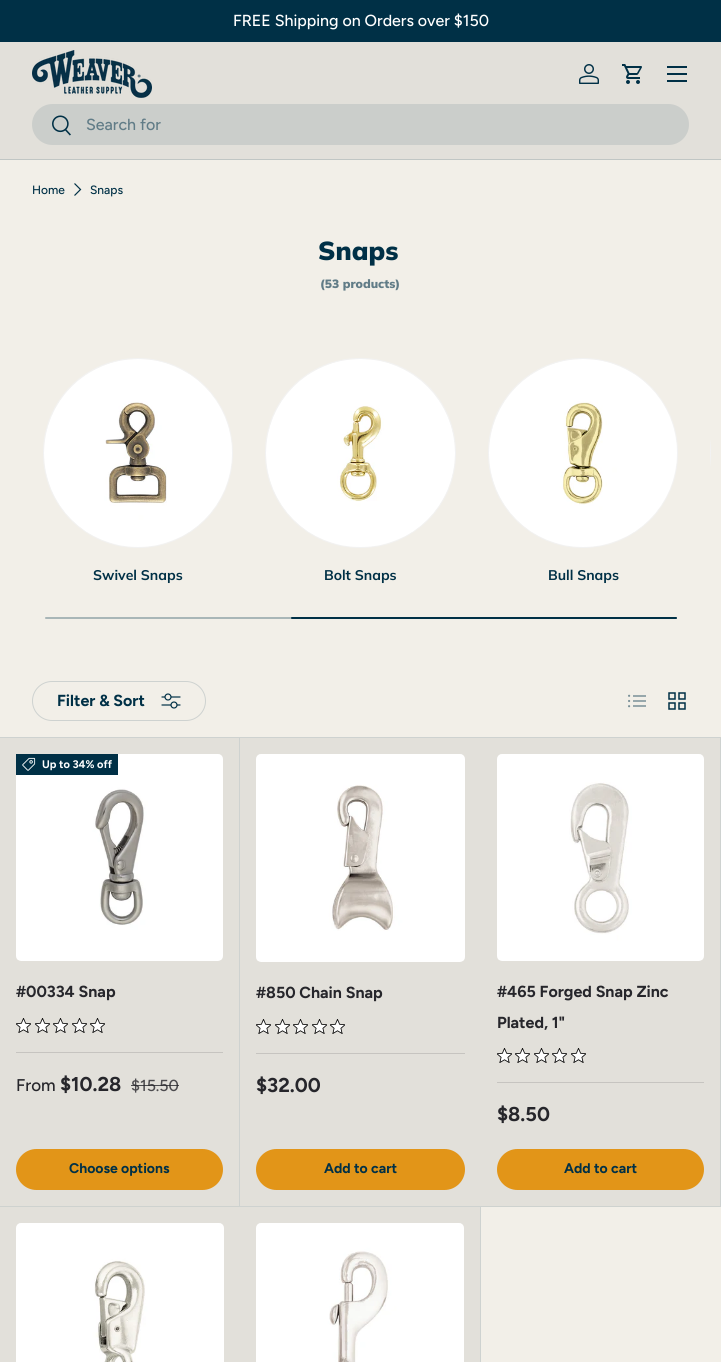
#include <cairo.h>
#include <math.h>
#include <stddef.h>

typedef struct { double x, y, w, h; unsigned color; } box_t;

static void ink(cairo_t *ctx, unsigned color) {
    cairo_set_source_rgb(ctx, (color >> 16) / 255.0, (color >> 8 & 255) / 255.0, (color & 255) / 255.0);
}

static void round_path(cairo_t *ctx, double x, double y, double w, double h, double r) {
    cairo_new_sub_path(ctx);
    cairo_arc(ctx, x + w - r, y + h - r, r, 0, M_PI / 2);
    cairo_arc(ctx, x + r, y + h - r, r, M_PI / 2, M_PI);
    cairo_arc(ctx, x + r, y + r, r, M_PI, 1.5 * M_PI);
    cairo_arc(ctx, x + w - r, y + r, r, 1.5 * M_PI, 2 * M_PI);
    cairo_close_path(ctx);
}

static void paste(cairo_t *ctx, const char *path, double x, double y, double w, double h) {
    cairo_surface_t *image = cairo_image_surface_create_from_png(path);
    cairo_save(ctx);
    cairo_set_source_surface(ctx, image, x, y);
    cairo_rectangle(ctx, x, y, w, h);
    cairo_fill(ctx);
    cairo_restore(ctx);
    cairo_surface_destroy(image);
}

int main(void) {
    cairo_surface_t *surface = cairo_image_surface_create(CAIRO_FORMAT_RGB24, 721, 1362);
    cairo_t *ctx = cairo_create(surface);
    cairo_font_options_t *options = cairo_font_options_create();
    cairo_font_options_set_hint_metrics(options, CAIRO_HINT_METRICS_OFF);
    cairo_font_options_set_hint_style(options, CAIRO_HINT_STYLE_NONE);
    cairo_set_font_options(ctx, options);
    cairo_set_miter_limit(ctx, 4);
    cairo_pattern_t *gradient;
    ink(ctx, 0xF2EFE8);
    cairo_paint(ctx);
    ink(ctx, 0x003046);
    cairo_rectangle(ctx, 0, 0, 721, 42);
    cairo_fill(ctx);
    cairo_select_font_face(ctx, "Figtree Medium", CAIRO_FONT_SLANT_NORMAL, CAIRO_FONT_WEIGHT_NORMAL);
    cairo_set_font_size(ctx, 16);
    ink(ctx, 0xFFFFFF);
    cairo_move_to(ctx, 233, 26);
    cairo_show_text(ctx, "FREE Shipping on Orders over $150");
    ink(ctx, 0xE2E0DA);
    cairo_rectangle(ctx, 0, 42, 721, 117);
    cairo_fill(ctx);
    ink(ctx, 0xC0C6C4);
    cairo_rectangle(ctx, 0, 159, 721, 1);
    cairo_fill(ctx);
    paste(ctx, "media/1.png", 32, 50, 120, 48);
    paste(ctx, "media/2.png", 579, 64, 20, 20);
    paste(ctx, "media/3.png", 622, 64, 20, 20);
    {
        static const box_t items[] = {
            {667, 66, 20, 2, 0x003046},
            {667, 80, 20, 2, 0x003046},
            {667, 73, 20, 2, 0x003046},
        };
        for (size_t i = 0; i < sizeof items / sizeof *items; i++) {
            ink(ctx, items[i].color);
            cairo_rectangle(ctx, items[i].x, items[i].y, items[i].w, items[i].h);
            cairo_fill(ctx);
        }
    }
    ink(ctx, 0xCBCECB);
    round_path(ctx, 32, 104, 657, 41, 20.5);
    cairo_fill(ctx);
    paste(ctx, "media/4.png", 52, 115, 19, 21);
    ink(ctx, 0x617C87);
    cairo_move_to(ctx, 86, 130);
    cairo_show_text(ctx, "Search for");
    cairo_set_font_size(ctx, 12);
    ink(ctx, 0x003046);
    cairo_move_to(ctx, 32, 194);
    cairo_show_text(ctx, "Home");
    cairo_new_path(ctx);
    cairo_move_to(ctx, 74.5, 183.5);
    cairo_line_to(ctx, 80.5, 189.5);
    cairo_line_to(ctx, 74.5, 195.5);
    cairo_set_line_width(ctx, 1.2);
    cairo_stroke(ctx);
    cairo_move_to(ctx, 90, 194);
    cairo_show_text(ctx, "Snaps");
    cairo_select_font_face(ctx, "Muli Black", CAIRO_FONT_SLANT_NORMAL, CAIRO_FONT_WEIGHT_NORMAL);
    cairo_set_font_size(ctx, 26);
    cairo_move_to(ctx, 318, 260);
    cairo_show_text(ctx, "Snaps");
    cairo_set_font_size(ctx, 12);
    ink(ctx, 0x617C87);
    cairo_move_to(ctx, 320, 288);
    cairo_show_text(ctx, "(53 products)");
    cairo_save(ctx);
    cairo_rectangle(ctx, 11, 358, 700, 267);
    cairo_clip(ctx);
    round_path(ctx, 710.5, 358.5, 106, 189, 94.5);
    ink(ctx, 0xF2F2F2);
    cairo_set_line_width(ctx, 1);
    cairo_stroke(ctx);
    cairo_restore(ctx);
    cairo_arc(ctx, 138, 453, 94.5, 0, 2 * M_PI);
    ink(ctx, 0xF2F2F2);
    cairo_set_line_width(ctx, 1);
    cairo_stroke(ctx);
    ink(ctx, 0xF9F9F9);
    cairo_arc(ctx, 138, 453, 94, 0, 2 * M_PI);
    cairo_fill(ctx);
    paste(ctx, "media/5.png", 44, 359, 188, 188);
    cairo_select_font_face(ctx, "Muli", CAIRO_FONT_SLANT_NORMAL, CAIRO_FONT_WEIGHT_BOLD);
    cairo_set_font_size(ctx, 14);
    ink(ctx, 0x003046);
    cairo_move_to(ctx, 93, 580);
    cairo_show_text(ctx, "Swivel Snaps");
    round_path(ctx, 265.5, 358.5, 190, 189, 94.5);
    ink(ctx, 0xF2F2F2);
    cairo_stroke(ctx);
    ink(ctx, 0xF9F9F9);
    round_path(ctx, 266, 359, 189, 188, 94);
    cairo_fill(ctx);
    paste(ctx, "media/6.png", 266, 359, 189, 188);
    ink(ctx, 0x003046);
    cairo_move_to(ctx, 324, 580);
    cairo_show_text(ctx, "Bolt Snaps");
    cairo_new_path(ctx);
    cairo_arc(ctx, 583, 453, 94.5, 0, 2 * M_PI);
    ink(ctx, 0xF2F2F2);
    cairo_stroke(ctx);
    ink(ctx, 0xF9F9F9);
    cairo_arc(ctx, 583, 453, 94, 0, 2 * M_PI);
    cairo_fill(ctx);
    paste(ctx, "media/7.png", 489, 359, 188, 188);
    ink(ctx, 0x003046);
    cairo_move_to(ctx, 548, 580);
    cairo_show_text(ctx, "Bull Snaps");
    ink(ctx, 0xA9B6B7);
    round_path(ctx, 45, 617, 632, 2, 1);
    cairo_fill(ctx);
    ink(ctx, 0x003046);
    round_path(ctx, 291, 617, 386, 2, 1);
    cairo_fill(ctx);
    round_path(ctx, 32.5, 681.5, 173, 39, 19.5);
    ink(ctx, 0xCED2D0);
    cairo_stroke(ctx);
    cairo_select_font_face(ctx, "Figtree", CAIRO_FONT_SLANT_NORMAL, CAIRO_FONT_WEIGHT_BOLD);
    cairo_set_font_size(ctx, 16);
    ink(ctx, 0x003046);
    cairo_move_to(ctx, 57, 706);
    cairo_show_text(ctx, "Filter & Sort");
    paste(ctx, "media/8.png", 161, 693, 20, 16);
    paste(ctx, "media/9.png", 628, 694, 18, 14);
    paste(ctx, "media/10.png", 668, 692, 18, 18);
    ink(ctx, 0xCED2D0);
    cairo_rectangle(ctx, 0, 737, 721, 1);
    cairo_fill(ctx);
    cairo_new_path(ctx);
    cairo_move_to(ctx, 240, 738);
    cairo_line_to(ctx, 240, 1207);
    cairo_line_to(ctx, 239, 1206);
    cairo_line_to(ctx, 239, 738);
    cairo_close_path(ctx);
    cairo_fill(ctx);
    cairo_set_source_rgba(ctx, 0, 0.188, 0.275, 0.15);
    cairo_new_path(ctx);
    cairo_move_to(ctx, 240, 1207);
    cairo_line_to(ctx, 0, 1207);
    cairo_line_to(ctx, 0, 1206);
    cairo_line_to(ctx, 239, 1206);
    cairo_close_path(ctx);
    cairo_fill(ctx);
    ink(ctx, 0xE2E0DA);
    cairo_rectangle(ctx, 0, 738, 239, 468);
    cairo_fill(ctx);
    paste(ctx, "media/11.png", 16, 754, 207, 207);
    ink(ctx, 0x003046);
    cairo_rectangle(ctx, 16, 754, 102, 21);
    cairo_fill(ctx);
    paste(ctx, "media/12.png", 22, 757, 14, 14);
    cairo_set_font_size(ctx, 11);
    ink(ctx, 0xFFFFFF);
    cairo_move_to(ctx, 42, 768);
    cairo_show_text(ctx, "Up to 34% off");
    cairo_set_font_size(ctx, 16);
    ink(ctx, 0x26262B);
    cairo_move_to(ctx, 16, 997);
    cairo_show_text(ctx, "#00334 Snap");
    paste(ctx, "media/13.png", 16, 1018, 15, 15);
    paste(ctx, "media/13.png", 35, 1018, 15, 15);
    paste(ctx, "media/13.png", 53, 1018, 15, 15);
    paste(ctx, "media/13.png", 72, 1018, 15, 15);
    paste(ctx, "media/13.png", 90, 1018, 15, 15);
    ink(ctx, 0xC6C4C0);
    cairo_rectangle(ctx, 16, 1052, 207, 1);
    cairo_fill(ctx);
    cairo_select_font_face(ctx, "Figtree Medium", CAIRO_FONT_SLANT_NORMAL, CAIRO_FONT_WEIGHT_NORMAL);
    cairo_set_font_size(ctx, 17);
    ink(ctx, 0x26262B);
    cairo_move_to(ctx, 16, 1091);
    cairo_show_text(ctx, "From");
    cairo_select_font_face(ctx, "Figtree", CAIRO_FONT_SLANT_NORMAL, CAIRO_FONT_WEIGHT_BOLD);
    cairo_set_font_size(ctx, 20);
    cairo_move_to(ctx, 60, 1091);
    cairo_show_text(ctx, "$10.28");
    cairo_select_font_face(ctx, "Figtree Medium", CAIRO_FONT_SLANT_NORMAL, CAIRO_FONT_WEIGHT_NORMAL);
    cairo_set_font_size(ctx, 16);
    ink(ctx, 0x4C4B4E);
    cairo_move_to(ctx, 131, 1091);
    cairo_show_text(ctx, "$15.50");
    cairo_set_source_rgba(ctx, 0.149, 0.149, 0.169, 0.8);
    cairo_rectangle(ctx, 131, 1085, 48, 1);
    cairo_fill(ctx);
    gradient = cairo_pattern_create_linear(-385, 1095, 210, 1244);
    cairo_pattern_add_color_stop_rgba(gradient, 0.6, 0.804, 0.561, 0.129, 1);
    cairo_pattern_add_color_stop_rgba(gradient, 0.6, 0.886, 0.584, 0.094, 1);
    cairo_pattern_add_color_stop_rgba(gradient, 1, 0.886, 0.584, 0.094, 1);
    cairo_set_source(ctx, gradient);
    cairo_pattern_destroy(gradient);
    round_path(ctx, 16, 1149, 207, 41, 20.5);
    cairo_fill(ctx);
    cairo_select_font_face(ctx, "Figtree", CAIRO_FONT_SLANT_NORMAL, CAIRO_FONT_WEIGHT_BOLD);
    cairo_set_font_size(ctx, 14);
    ink(ctx, 0x003046);
    cairo_move_to(ctx, 69, 1173);
    cairo_show_text(ctx, "Choose options");
    ink(ctx, 0xCED2D0);
    cairo_rectangle(ctx, 240, 1206, 241, 1);
    cairo_fill(ctx);
    ink(ctx, 0xE2E0DA);
    cairo_rectangle(ctx, 240, 738, 480, 468);
    cairo_fill(ctx);
    paste(ctx, "media/14.png", 256, 754, 209, 208);
    cairo_set_font_size(ctx, 16);
    ink(ctx, 0x26262B);
    cairo_move_to(ctx, 256, 998);
    cairo_show_text(ctx, "#850 Chain Snap");
    paste(ctx, "media/13.png", 256, 1019, 15, 15);
    paste(ctx, "media/13.png", 275, 1019, 15, 15);
    paste(ctx, "media/13.png", 293, 1019, 15, 15);
    paste(ctx, "media/13.png", 312, 1019, 15, 15);
    paste(ctx, "media/13.png", 330, 1019, 15, 15);
    ink(ctx, 0xC6C4C0);
    cairo_rectangle(ctx, 256, 1053, 209, 1);
    cairo_fill(ctx);
    cairo_set_font_size(ctx, 20);
    ink(ctx, 0x26262B);
    cairo_move_to(ctx, 256, 1092);
    cairo_show_text(ctx, "$32.00");
    gradient = cairo_pattern_create_linear(-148, 1095, 451, 1244);
    cairo_pattern_add_color_stop_rgba(gradient, 0.6, 0.804, 0.561, 0.129, 1);
    cairo_pattern_add_color_stop_rgba(gradient, 0.6, 0.886, 0.584, 0.094, 1);
    cairo_pattern_add_color_stop_rgba(gradient, 1, 0.886, 0.584, 0.094, 1);
    cairo_set_source(ctx, gradient);
    cairo_pattern_destroy(gradient);
    round_path(ctx, 256, 1149, 209, 41, 20.5);
    cairo_fill(ctx);
    cairo_set_font_size(ctx, 14);
    ink(ctx, 0x003046);
    cairo_move_to(ctx, 324, 1173);
    cairo_show_text(ctx, "Add to cart");
    ink(ctx, 0xCED2D0);
    cairo_new_path(ctx);
    cairo_move_to(ctx, 721, 738);
    cairo_line_to(ctx, 721, 1207);
    cairo_line_to(ctx, 720, 1206);
    cairo_line_to(ctx, 720, 738);
    cairo_close_path(ctx);
    cairo_fill(ctx);
    cairo_set_source_rgba(ctx, 0, 0.188, 0.275, 0.15);
    cairo_new_path(ctx);
    cairo_move_to(ctx, 721, 1207);
    cairo_line_to(ctx, 481, 1207);
    cairo_line_to(ctx, 481, 1206);
    cairo_line_to(ctx, 720, 1206);
    cairo_close_path(ctx);
    cairo_fill(ctx);
    paste(ctx, "media/15.png", 497, 754, 207, 207);
    cairo_set_font_size(ctx, 16);
    ink(ctx, 0x26262B);
    cairo_move_to(ctx, 497, 997);
    cairo_show_text(ctx, "#465 Forged Snap Zinc");
    cairo_move_to(ctx, 497, 1028);
    cairo_show_text(ctx, "Plated, 1\"");
    paste(ctx, "media/13.png", 497, 1048, 15, 15);
    paste(ctx, "media/13.png", 515, 1048, 15, 15);
    paste(ctx, "media/13.png", 534, 1048, 15, 15);
    paste(ctx, "media/13.png", 552, 1048, 15, 15);
    paste(ctx, "media/13.png", 571, 1048, 15, 15);
    ink(ctx, 0xC6C4C0);
    cairo_rectangle(ctx, 497, 1082, 207, 1);
    cairo_fill(ctx);
    cairo_set_font_size(ctx, 20);
    ink(ctx, 0x26262B);
    cairo_move_to(ctx, 497, 1121);
    cairo_show_text(ctx, "$8.50");
    gradient = cairo_pattern_create_linear(96, 1095, 691, 1244);
    cairo_pattern_add_color_stop_rgba(gradient, 0.6, 0.804, 0.561, 0.129, 1);
    cairo_pattern_add_color_stop_rgba(gradient, 0.6, 0.886, 0.584, 0.094, 1);
    cairo_pattern_add_color_stop_rgba(gradient, 1, 0.886, 0.584, 0.094, 1);
    cairo_set_source(ctx, gradient);
    cairo_pattern_destroy(gradient);
    round_path(ctx, 497, 1149, 207, 41, 20.5);
    cairo_fill(ctx);
    cairo_set_font_size(ctx, 14);
    ink(ctx, 0x003046);
    cairo_move_to(ctx, 564, 1173);
    cairo_show_text(ctx, "Add to cart");
    ink(ctx, 0xE2E0DA);
    cairo_rectangle(ctx, 0, 1207, 480, 155);
    cairo_fill(ctx);
    paste(ctx, "media/16.png", 16, 1223, 208, 139);
    ink(ctx, 0xCED2D0);
    cairo_new_path(ctx);
    cairo_move_to(ctx, 481, 1207);
    cairo_line_to(ctx, 481, 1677);
    cairo_line_to(ctx, 480, 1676);
    cairo_line_to(ctx, 480, 1207);
    cairo_close_path(ctx);
    cairo_fill(ctx);
    paste(ctx, "media/17.png", 256, 1223, 208, 139);
    cairo_surface_write_to_png(surface, "image.png");
    cairo_font_options_destroy(options);
    cairo_destroy(ctx);
    cairo_surface_destroy(surface);
    return 0;
}
